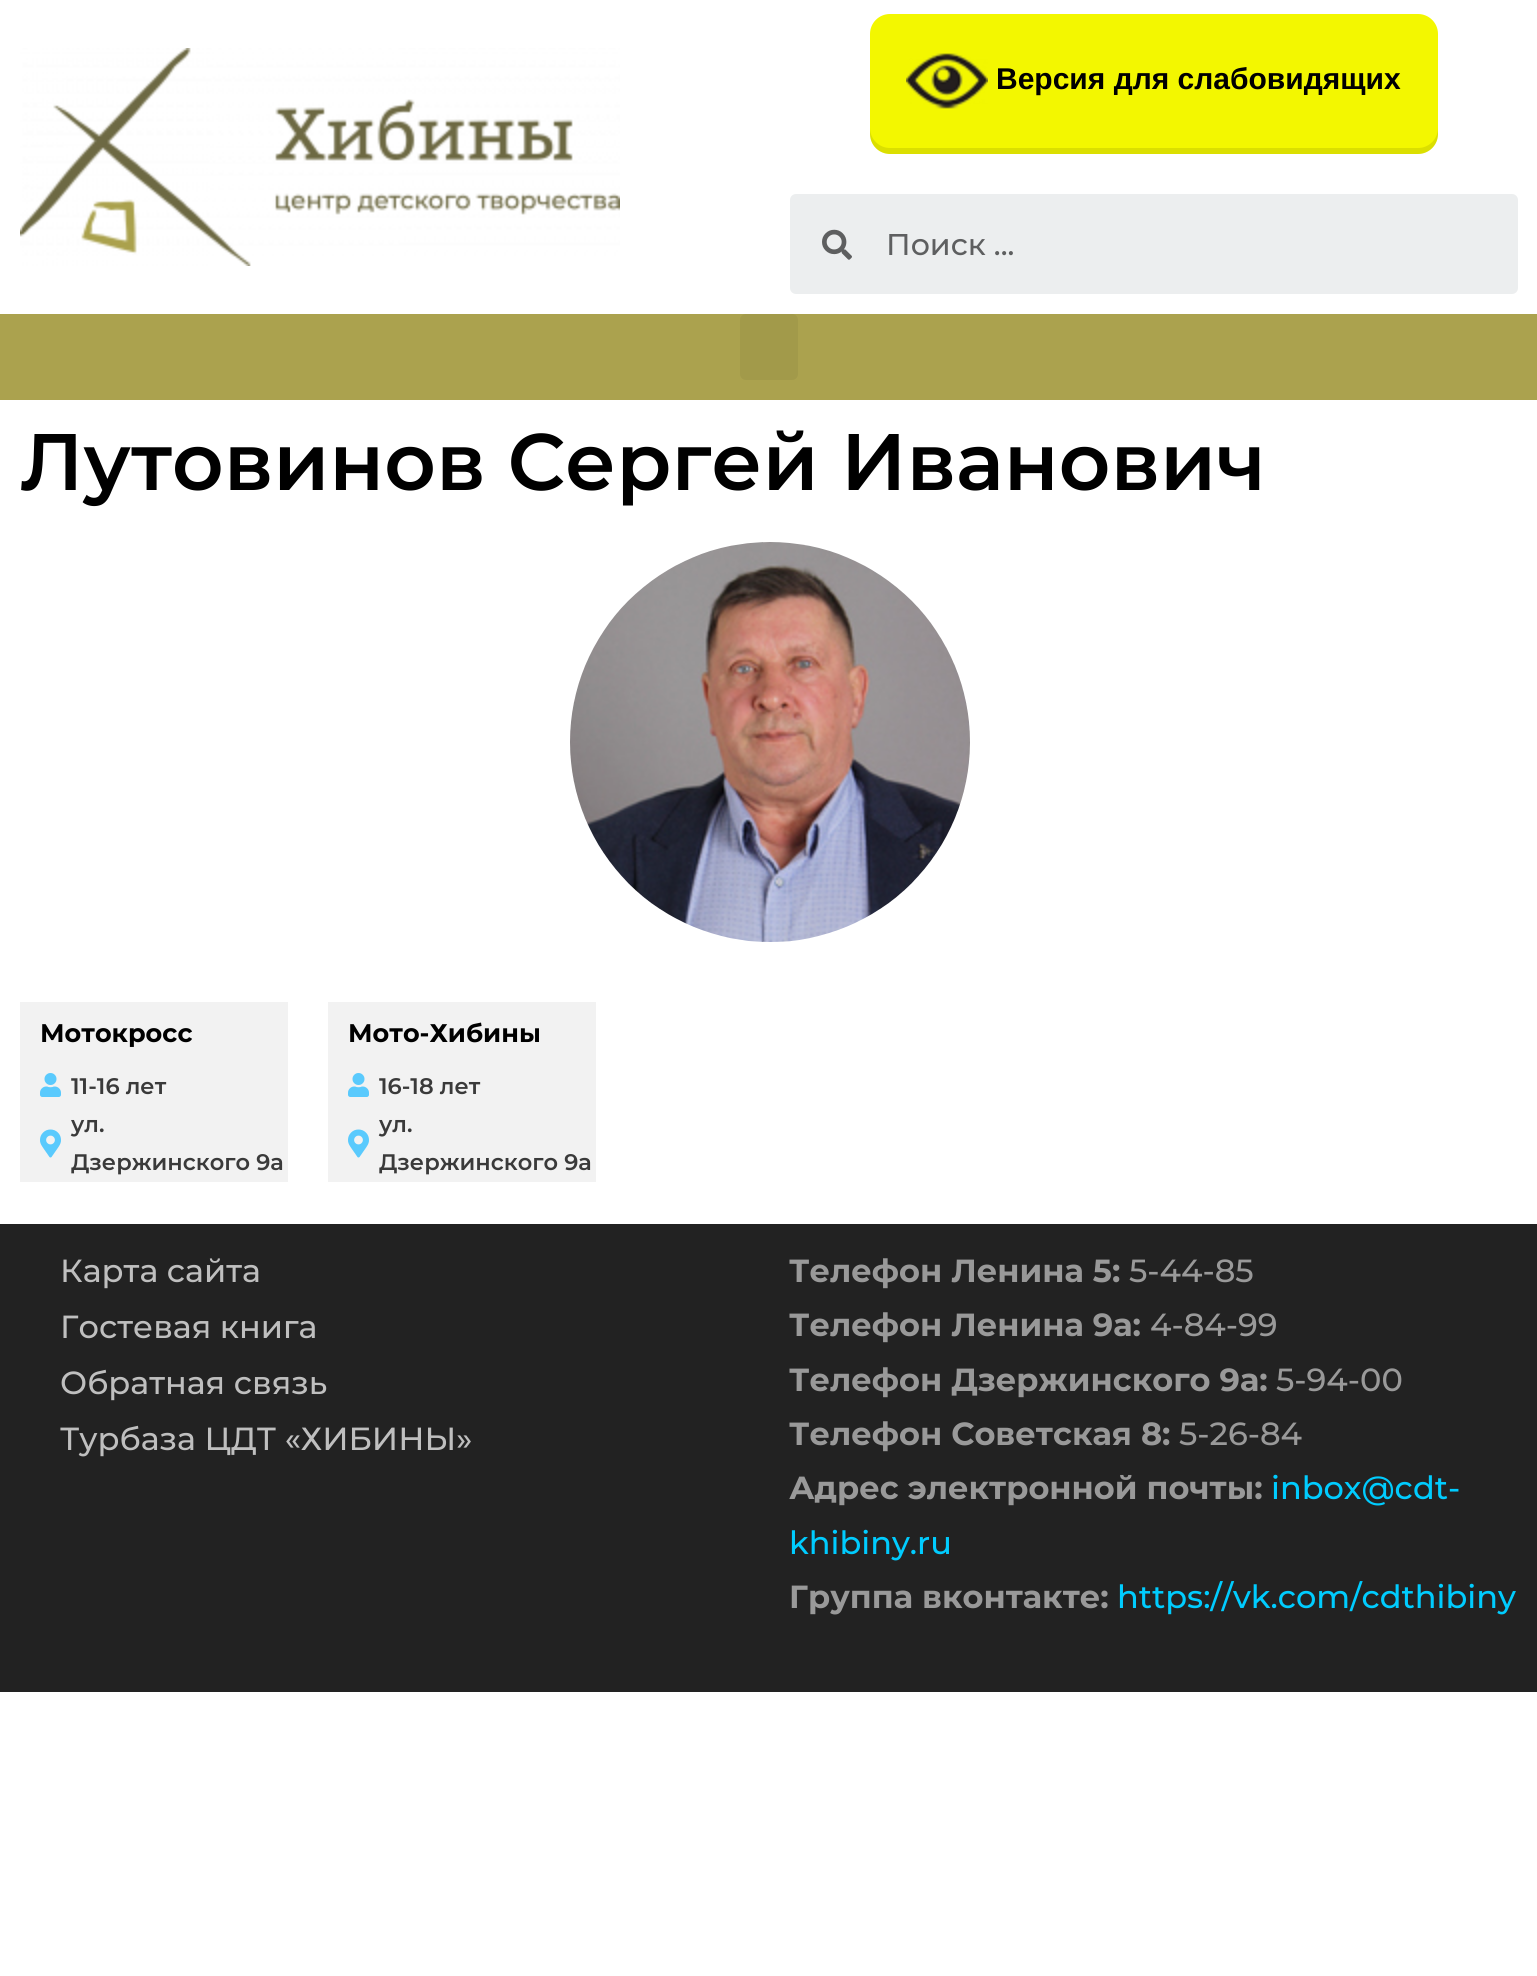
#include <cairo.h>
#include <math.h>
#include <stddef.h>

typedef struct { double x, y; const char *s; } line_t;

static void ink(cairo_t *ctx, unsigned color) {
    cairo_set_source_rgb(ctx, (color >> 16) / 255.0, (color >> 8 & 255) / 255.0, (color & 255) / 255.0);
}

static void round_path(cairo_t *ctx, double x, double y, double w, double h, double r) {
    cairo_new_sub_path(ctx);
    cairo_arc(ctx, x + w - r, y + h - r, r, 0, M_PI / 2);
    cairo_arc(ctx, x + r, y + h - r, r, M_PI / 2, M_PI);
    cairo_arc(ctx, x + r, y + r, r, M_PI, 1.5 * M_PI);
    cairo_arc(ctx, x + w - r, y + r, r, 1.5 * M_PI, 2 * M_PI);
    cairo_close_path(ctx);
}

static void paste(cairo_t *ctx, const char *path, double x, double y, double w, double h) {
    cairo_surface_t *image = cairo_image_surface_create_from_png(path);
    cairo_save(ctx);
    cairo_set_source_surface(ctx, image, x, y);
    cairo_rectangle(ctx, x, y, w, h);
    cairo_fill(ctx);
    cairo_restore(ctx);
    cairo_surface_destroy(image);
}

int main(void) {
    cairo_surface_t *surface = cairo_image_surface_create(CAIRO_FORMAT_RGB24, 1537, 1976);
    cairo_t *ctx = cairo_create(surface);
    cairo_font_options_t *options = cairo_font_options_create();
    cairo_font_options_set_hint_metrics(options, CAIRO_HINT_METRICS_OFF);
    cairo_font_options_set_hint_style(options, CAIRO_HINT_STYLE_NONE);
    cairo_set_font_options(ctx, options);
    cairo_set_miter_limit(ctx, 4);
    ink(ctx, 0xFFFFFF);
    cairo_paint(ctx);
    paste(ctx, "media/1.png", 20, 48, 600, 218);
    ink(ctx, 0xF3F700);
    round_path(ctx, 870, 14, 568, 140, 20);
    cairo_fill(ctx);
    cairo_set_source_rgba(ctx, 0, 0, 0, 0.1);
    cairo_new_path(ctx);
    cairo_move_to(ctx, 870, 128);
    cairo_line_to(ctx, 870, 134);
    cairo_curve_to(ctx, 870, 145, 879, 154, 890, 154);
    cairo_line_to(ctx, 1418, 154);
    cairo_curve_to(ctx, 1429, 154, 1438, 145, 1438, 134);
    cairo_line_to(ctx, 1438, 128);
    cairo_curve_to(ctx, 1438, 139, 1429, 148, 1418, 148);
    cairo_line_to(ctx, 890, 148);
    cairo_curve_to(ctx, 879, 148, 870, 139, 870, 128);
    cairo_close_path(ctx);
    cairo_fill(ctx);
    paste(ctx, "media/2.png", 906, 53, 82, 56);
    cairo_select_font_face(ctx, "Liberation Sans", CAIRO_FONT_SLANT_NORMAL, CAIRO_FONT_WEIGHT_BOLD);
    cairo_set_font_size(ctx, 30);
    ink(ctx, 0x000000);
    cairo_move_to(ctx, 996, 89);
    cairo_show_text(ctx, "Версия для слабовидящих");
    ink(ctx, 0xECEEEF);
    round_path(ctx, 790, 194, 728, 100, 6);
    cairo_fill(ctx);
    paste(ctx, "media/3.png", 822, 229, 30, 31);
    cairo_select_font_face(ctx, "Montserrat Medium", CAIRO_FONT_SLANT_NORMAL, CAIRO_FONT_WEIGHT_NORMAL);
    ink(ctx, 0x5E5F60);
    cairo_move_to(ctx, 886, 255);
    cairo_show_text(ctx, "Поиск ...");
    ink(ctx, 0xABA24E);
    cairo_rectangle(ctx, 0, 314, 1537, 86);
    cairo_fill(ctx);
    ink(ctx, 0xA29A4A);
    round_path(ctx, 740, 314, 58, 66, 6);
    cairo_fill(ctx);
    cairo_select_font_face(ctx, "Montserrat SemiBold", CAIRO_FONT_SLANT_NORMAL, CAIRO_FONT_WEIGHT_NORMAL);
    cairo_set_font_size(ctx, 80);
    ink(ctx, 0x000000);
    cairo_move_to(ctx, 20, 490);
    cairo_show_text(ctx, "Лутовинов Сергей Иванович");
    paste(ctx, "media/4.png", 570, 542, 400, 400);
    ink(ctx, 0xF2F2F2);
    cairo_rectangle(ctx, 20, 1002, 268, 180);
    cairo_fill(ctx);
    cairo_select_font_face(ctx, "Montserrat", CAIRO_FONT_SLANT_NORMAL, CAIRO_FONT_WEIGHT_BOLD);
    cairo_set_font_size(ctx, 25.5);
    ink(ctx, 0x000000);
    cairo_move_to(ctx, 40, 1042);
    cairo_show_text(ctx, "Мотокросс");
    paste(ctx, "media/5.png", 40, 1073, 21, 24);
    cairo_select_font_face(ctx, "Montserrat SemiBold", CAIRO_FONT_SLANT_NORMAL, CAIRO_FONT_WEIGHT_NORMAL);
    cairo_set_font_size(ctx, 22.5);
    ink(ctx, 0x3A3A3A);
    cairo_move_to(ctx, 71, 1094);
    cairo_show_text(ctx, "11-16 лет");
    paste(ctx, "media/6.png", 40, 1129, 21, 29);
    cairo_move_to(ctx, 71, 1132);
    cairo_show_text(ctx, "ул.");
    cairo_move_to(ctx, 71, 1170);
    cairo_show_text(ctx, "Дзержинского 9а");
    ink(ctx, 0xF2F2F2);
    cairo_rectangle(ctx, 328, 1002, 268, 180);
    cairo_fill(ctx);
    cairo_select_font_face(ctx, "Montserrat", CAIRO_FONT_SLANT_NORMAL, CAIRO_FONT_WEIGHT_BOLD);
    cairo_set_font_size(ctx, 25.5);
    ink(ctx, 0x000000);
    cairo_move_to(ctx, 348, 1042);
    cairo_show_text(ctx, "Мото-Хибины");
    paste(ctx, "media/5.png", 348, 1073, 21, 24);
    cairo_select_font_face(ctx, "Montserrat SemiBold", CAIRO_FONT_SLANT_NORMAL, CAIRO_FONT_WEIGHT_NORMAL);
    cairo_set_font_size(ctx, 22.5);
    ink(ctx, 0x3A3A3A);
    cairo_move_to(ctx, 379, 1094);
    cairo_show_text(ctx, "16-18 лет");
    paste(ctx, "media/6.png", 348, 1129, 21, 29);
    cairo_move_to(ctx, 379, 1132);
    cairo_show_text(ctx, "ул.");
    cairo_move_to(ctx, 379, 1170);
    cairo_show_text(ctx, "Дзержинского 9а");
    ink(ctx, 0x222222);
    cairo_rectangle(ctx, 0, 1224, 1537, 468);
    cairo_fill(ctx);
    cairo_select_font_face(ctx, "Montserrat Medium", CAIRO_FONT_SLANT_NORMAL, CAIRO_FONT_WEIGHT_NORMAL);
    cairo_set_font_size(ctx, 32);
    ink(ctx, 0xBFBFBF);
    {
        static const line_t items[] = {
            {60, 1282, "Карта сайта"},
            {60, 1338, "Гостевая книга"},
            {60, 1394, "Обратная связь"},
            {60, 1450, "Турбаза ЦДТ «ХИБИНЫ»"},
        };
        for (size_t i = 0; i < sizeof items / sizeof *items; i++) {
            cairo_move_to(ctx, items[i].x, items[i].y);
            cairo_show_text(ctx, items[i].s);
        }
    }
    cairo_select_font_face(ctx, "Montserrat", CAIRO_FONT_SLANT_NORMAL, CAIRO_FONT_WEIGHT_BOLD);
    ink(ctx, 0x999999);
    cairo_move_to(ctx, 789, 1282);
    cairo_show_text(ctx, "Телефон Ленина 5:");
    cairo_select_font_face(ctx, "Montserrat Medium", CAIRO_FONT_SLANT_NORMAL, CAIRO_FONT_WEIGHT_NORMAL);
    cairo_move_to(ctx, 1129, 1282);
    cairo_show_text(ctx, "5-44-85");
    cairo_select_font_face(ctx, "Montserrat", CAIRO_FONT_SLANT_NORMAL, CAIRO_FONT_WEIGHT_BOLD);
    cairo_move_to(ctx, 789, 1336);
    cairo_show_text(ctx, "Телефон Ленина 9а:");
    cairo_select_font_face(ctx, "Montserrat Medium", CAIRO_FONT_SLANT_NORMAL, CAIRO_FONT_WEIGHT_NORMAL);
    cairo_move_to(ctx, 1150, 1336);
    cairo_show_text(ctx, "4-84-99");
    cairo_select_font_face(ctx, "Montserrat", CAIRO_FONT_SLANT_NORMAL, CAIRO_FONT_WEIGHT_BOLD);
    cairo_move_to(ctx, 789, 1391);
    cairo_show_text(ctx, "Телефон Дзержинского 9а:");
    cairo_select_font_face(ctx, "Montserrat Medium", CAIRO_FONT_SLANT_NORMAL, CAIRO_FONT_WEIGHT_NORMAL);
    cairo_move_to(ctx, 1276, 1391);
    cairo_show_text(ctx, "5-94-00");
    cairo_select_font_face(ctx, "Montserrat", CAIRO_FONT_SLANT_NORMAL, CAIRO_FONT_WEIGHT_BOLD);
    cairo_move_to(ctx, 789, 1445);
    cairo_show_text(ctx, "Телефон Советская 8:");
    cairo_select_font_face(ctx, "Montserrat Medium", CAIRO_FONT_SLANT_NORMAL, CAIRO_FONT_WEIGHT_NORMAL);
    cairo_move_to(ctx, 1179, 1445);
    cairo_show_text(ctx, "5-26-84");
    cairo_select_font_face(ctx, "Montserrat", CAIRO_FONT_SLANT_NORMAL, CAIRO_FONT_WEIGHT_BOLD);
    cairo_move_to(ctx, 789, 1499);
    cairo_show_text(ctx, "Адрес электронной почты:");
    cairo_select_font_face(ctx, "Montserrat Medium", CAIRO_FONT_SLANT_NORMAL, CAIRO_FONT_WEIGHT_NORMAL);
    ink(ctx, 0x00CCFF);
    cairo_move_to(ctx, 1271, 1499);
    cairo_show_text(ctx, "inbox@cdt-");
    cairo_move_to(ctx, 789, 1554);
    cairo_show_text(ctx, "khibiny.ru");
    cairo_select_font_face(ctx, "Montserrat", CAIRO_FONT_SLANT_NORMAL, CAIRO_FONT_WEIGHT_BOLD);
    ink(ctx, 0x999999);
    cairo_move_to(ctx, 789, 1608);
    cairo_show_text(ctx, "Группа вконтакте:");
    cairo_select_font_face(ctx, "Montserrat Medium", CAIRO_FONT_SLANT_NORMAL, CAIRO_FONT_WEIGHT_NORMAL);
    ink(ctx, 0x00CCFF);
    cairo_move_to(ctx, 1117, 1608);
    cairo_show_text(ctx, "https://vk.com/cdthibiny");
    cairo_surface_write_to_png(surface, "image.png");
    cairo_font_options_destroy(options);
    cairo_destroy(ctx);
    cairo_surface_destroy(surface);
    return 0;
}
